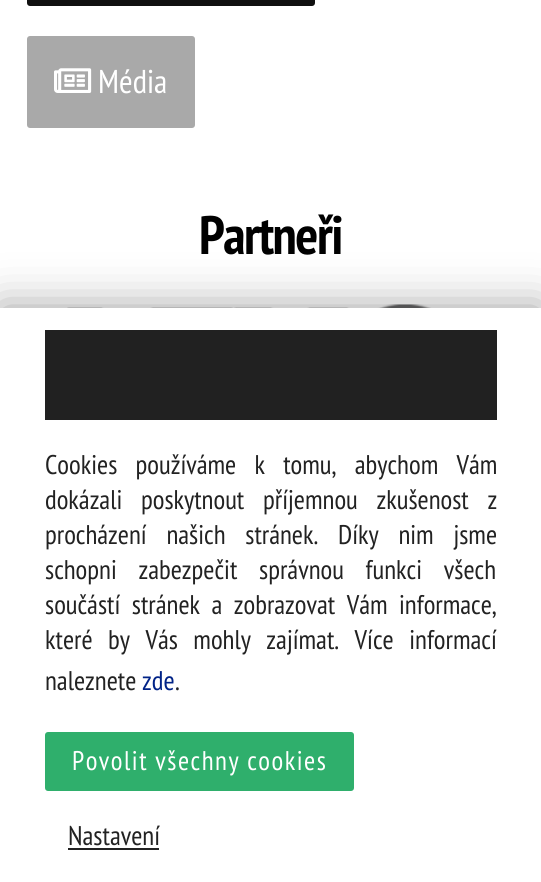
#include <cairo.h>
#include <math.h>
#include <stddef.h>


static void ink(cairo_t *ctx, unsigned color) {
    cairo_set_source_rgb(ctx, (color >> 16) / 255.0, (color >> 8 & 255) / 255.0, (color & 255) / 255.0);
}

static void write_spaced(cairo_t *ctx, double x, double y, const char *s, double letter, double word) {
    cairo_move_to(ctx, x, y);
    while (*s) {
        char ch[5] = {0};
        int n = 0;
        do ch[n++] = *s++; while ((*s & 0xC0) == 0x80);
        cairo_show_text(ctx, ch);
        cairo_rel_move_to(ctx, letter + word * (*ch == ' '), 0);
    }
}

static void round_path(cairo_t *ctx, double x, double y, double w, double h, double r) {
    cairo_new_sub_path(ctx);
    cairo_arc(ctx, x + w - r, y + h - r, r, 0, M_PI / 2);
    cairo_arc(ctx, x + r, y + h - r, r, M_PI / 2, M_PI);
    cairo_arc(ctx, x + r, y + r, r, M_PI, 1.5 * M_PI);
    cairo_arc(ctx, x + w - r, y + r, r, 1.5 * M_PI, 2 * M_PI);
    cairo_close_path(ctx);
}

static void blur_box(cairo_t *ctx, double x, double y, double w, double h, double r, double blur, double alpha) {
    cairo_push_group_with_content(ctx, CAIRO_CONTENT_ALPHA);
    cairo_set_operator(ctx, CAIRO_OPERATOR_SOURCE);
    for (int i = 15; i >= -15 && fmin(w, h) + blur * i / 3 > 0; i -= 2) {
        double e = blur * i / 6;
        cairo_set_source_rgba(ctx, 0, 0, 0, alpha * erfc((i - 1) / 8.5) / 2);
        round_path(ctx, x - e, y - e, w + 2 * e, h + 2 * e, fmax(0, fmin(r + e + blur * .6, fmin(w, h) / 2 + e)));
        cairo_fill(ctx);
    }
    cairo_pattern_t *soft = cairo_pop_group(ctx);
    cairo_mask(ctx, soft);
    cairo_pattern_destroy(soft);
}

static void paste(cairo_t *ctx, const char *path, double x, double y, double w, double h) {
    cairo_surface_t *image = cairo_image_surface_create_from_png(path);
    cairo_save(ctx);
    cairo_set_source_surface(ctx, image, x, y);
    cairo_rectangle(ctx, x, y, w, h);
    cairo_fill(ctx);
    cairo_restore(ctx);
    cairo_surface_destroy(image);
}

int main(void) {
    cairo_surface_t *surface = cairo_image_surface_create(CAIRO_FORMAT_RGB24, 541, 882);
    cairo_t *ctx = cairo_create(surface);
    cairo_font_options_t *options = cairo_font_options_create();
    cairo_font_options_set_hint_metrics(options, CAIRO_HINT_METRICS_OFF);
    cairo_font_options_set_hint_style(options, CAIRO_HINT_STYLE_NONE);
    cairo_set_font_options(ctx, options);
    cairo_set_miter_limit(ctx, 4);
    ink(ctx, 0xFFFFFF);
    cairo_paint(ctx);
    ink(ctx, 0x101010);
    round_path(ctx, 27, -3, 288, 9, 3);
    cairo_fill(ctx);
    ink(ctx, 0xA9A9A9);
    round_path(ctx, 27, 36, 168, 92, 3);
    cairo_fill(ctx);
    paste(ctx, "media/1.png", 54, 68, 38, 25);
    cairo_select_font_face(ctx, "PT Sans Narrow", CAIRO_FONT_SLANT_NORMAL, CAIRO_FONT_WEIGHT_NORMAL);
    cairo_set_font_size(ctx, 33);
    ink(ctx, 0xFFFFFF);
    cairo_move_to(ctx, 98, 93);
    cairo_show_text(ctx, "Média");
    cairo_select_font_face(ctx, "PT Sans Narrow", CAIRO_FONT_SLANT_NORMAL, CAIRO_FONT_WEIGHT_BOLD);
    cairo_set_font_size(ctx, 54);
    ink(ctx, 0x000000);
    write_spaced(ctx, 199, 254, "Partneři", -1.5, 0);
    paste(ctx, "media/2.png", 67, 304, 406, 4);
    ink(ctx, 0x9E9E9E);
    blur_box(ctx, 0, 308, 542, 574, 0, 22.5, 1);
    ink(ctx, 0xFFFFFF);
    cairo_rectangle(ctx, 0, 308, 541, 574);
    cairo_fill(ctx);
    ink(ctx, 0x212121);
    cairo_rectangle(ctx, 45, 330, 452, 90);
    cairo_fill(ctx);
    cairo_select_font_face(ctx, "PT Sans Narrow", CAIRO_FONT_SLANT_NORMAL, CAIRO_FONT_WEIGHT_NORMAL);
    cairo_set_font_size(ctx, 27);
    ink(ctx, 0x222222);
    write_spaced(ctx, 45, 474, "Cookies používáme k tomu, abychom Vám", 0, 12.5);
    write_spaced(ctx, 45, 509, "dokázali poskytnout příjemnou zkušenost z", 0, 13);
    write_spaced(ctx, 45, 544, "procházení našich stránek. Díky nim jsme", 0, 14);
    write_spaced(ctx, 45, 579, "schopni zabezpečit správnou funkci všech", 0, 16);
    write_spaced(ctx, 45, 614, "součástí stránek a zobrazovat Vám informace,", 0, 5.75);
    write_spaced(ctx, 45, 649, "které by Vás mohly zajímat. Více informací", 0, 9.75);
    cairo_move_to(ctx, 45, 690);
    cairo_show_text(ctx, "naleznete");
    ink(ctx, 0x012387);
    cairo_move_to(ctx, 142, 690);
    cairo_show_text(ctx, "zde");
    ink(ctx, 0x222222);
    cairo_move_to(ctx, 175, 690);
    cairo_show_text(ctx, ".");
    ink(ctx, 0x2FAF6C);
    round_path(ctx, 45, 732, 309, 59, 3);
    cairo_fill(ctx);
    ink(ctx, 0xFFFFFF);
    write_spaced(ctx, 72, 770, "Povolit všechny cookies", 1.5, 0);
    ink(ctx, 0x222222);
    cairo_move_to(ctx, 68, 845);
    cairo_show_text(ctx, "Nastavení");
    cairo_rectangle(ctx, 68, 848, 91, 2);
    cairo_fill(ctx);
    cairo_surface_write_to_png(surface, "image.png");
    cairo_font_options_destroy(options);
    cairo_destroy(ctx);
    cairo_surface_destroy(surface);
    return 0;
}
